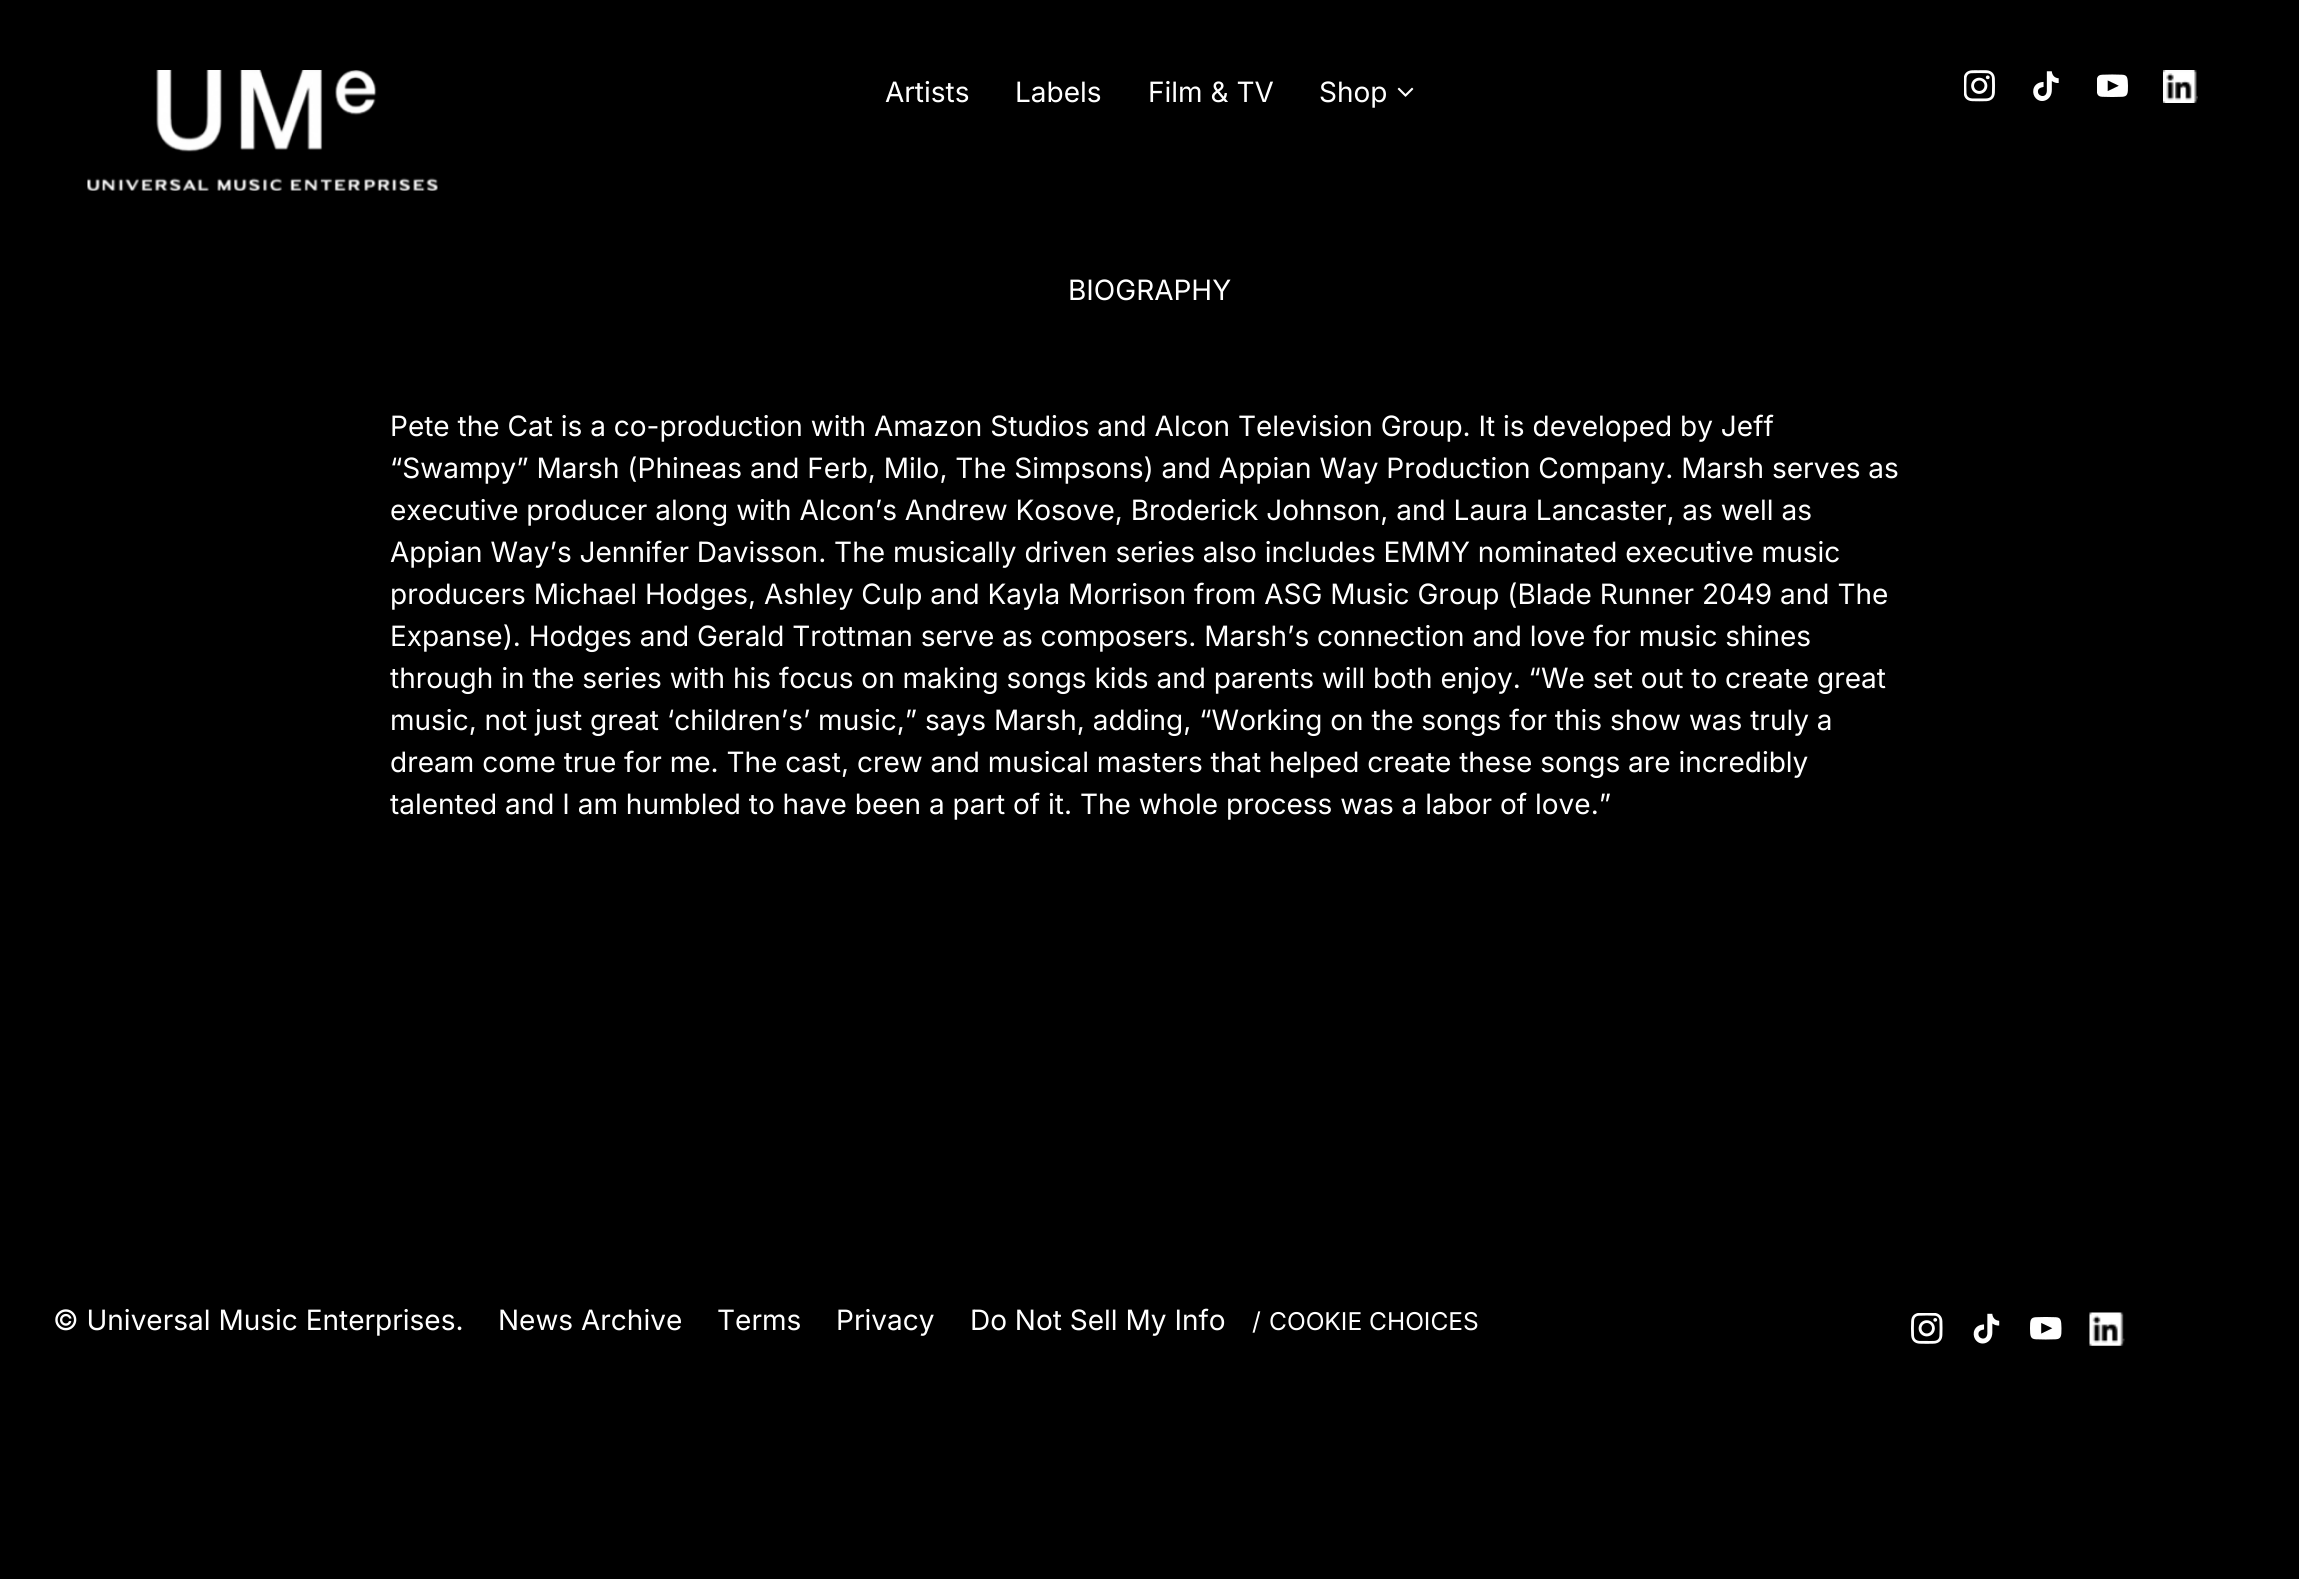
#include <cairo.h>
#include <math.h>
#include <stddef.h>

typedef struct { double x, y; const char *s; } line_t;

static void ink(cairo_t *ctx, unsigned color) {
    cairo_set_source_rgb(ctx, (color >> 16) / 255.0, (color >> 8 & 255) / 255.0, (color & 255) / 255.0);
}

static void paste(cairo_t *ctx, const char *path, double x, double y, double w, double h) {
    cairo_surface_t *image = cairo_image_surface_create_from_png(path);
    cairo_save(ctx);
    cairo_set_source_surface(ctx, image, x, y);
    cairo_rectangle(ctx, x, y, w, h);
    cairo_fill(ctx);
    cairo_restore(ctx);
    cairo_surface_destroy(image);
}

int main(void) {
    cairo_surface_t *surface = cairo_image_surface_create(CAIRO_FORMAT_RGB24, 2299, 1579);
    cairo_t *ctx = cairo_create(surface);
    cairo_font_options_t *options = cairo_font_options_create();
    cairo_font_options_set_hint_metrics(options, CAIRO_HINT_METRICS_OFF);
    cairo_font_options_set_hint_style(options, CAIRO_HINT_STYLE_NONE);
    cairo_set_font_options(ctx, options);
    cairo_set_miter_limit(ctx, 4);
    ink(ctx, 0x000000);
    cairo_paint(ctx);
    paste(ctx, "media/1.png", 87, 70, 351, 121);
    cairo_select_font_face(ctx, "Inter", CAIRO_FONT_SLANT_NORMAL, CAIRO_FONT_WEIGHT_NORMAL);
    cairo_set_font_size(ctx, 28);
    ink(ctx, 0xFFFFFF);
    {
        static const line_t items[] = {
            {885, 102, "Artists"},
            {1015, 102, "Labels"},
            {1148, 102, "Film & TV"},
            {1319, 102, "Shop"},
        };
        for (size_t i = 0; i < sizeof items / sizeof *items; i++) {
            cairo_move_to(ctx, items[i].x, items[i].y);
            cairo_show_text(ctx, items[i].s);
        }
    }
    paste(ctx, "media/2.png", 1397, 87, 17, 10);
    paste(ctx, "media/3.png", 1964, 70, 31, 32);
    paste(ctx, "media/4.png", 2033, 71, 26, 30);
    paste(ctx, "media/5.png", 2097, 74, 31, 23);
    paste(ctx, "media/6.png", 2163, 70, 35, 33);
    {
        static const line_t items[] = {
            {1068, 300, "BIOGRAPHY"},
            {390, 436, "Pete the Cat is a co-production with Amazon Studios and Alcon Television Group. It is developed by Jeff"},
            {390, 478, "“Swampy” Marsh (Phineas and Ferb, Milo, The Simpsons) and Appian Way Production Company. Marsh serves as"},
            {390, 520, "executive producer along with Alcon’s Andrew Kosove, Broderick Johnson, and Laura Lancaster, as well as"},
            {390, 562, "Appian Way’s Jennifer Davisson. The musically driven series also includes EMMY nominated executive music"},
            {390, 604, "producers Michael Hodges, Ashley Culp and Kayla Morrison from ASG Music Group (Blade Runner 2049 and The"},
            {390, 646, "Expanse). Hodges and Gerald Trottman serve as composers. Marsh’s connection and love for music shines"},
            {390, 688, "through in the series with his focus on making songs kids and parents will both enjoy. “We set out to create great"},
            {390, 730, "music, not just great ‘children’s’ music,” says Marsh, adding, “Working on the songs for this show was truly a"},
            {390, 772, "dream come true for me. The cast, crew and musical masters that helped create these songs are incredibly"},
            {390, 814, "talented and I am humbled to have been a part of it. The whole process was a labor of love.”"},
            {53, 1330, "© Universal Music Enterprises."},
            {498, 1330, "News Archive"},
            {717, 1330, "Terms"},
            {836, 1330, "Privacy"},
            {970, 1330, "Do Not Sell My Info"},
        };
        for (size_t i = 0; i < sizeof items / sizeof *items; i++) {
            cairo_move_to(ctx, items[i].x, items[i].y);
            cairo_show_text(ctx, items[i].s);
        }
    }
    cairo_set_font_size(ctx, 24.5);
    cairo_move_to(ctx, 1252, 1330);
    cairo_show_text(ctx, "/");
    cairo_move_to(ctx, 1269, 1330);
    cairo_show_text(ctx, "COOKIE CHOICES");
    paste(ctx, "media/7.png", 1911, 1313, 32, 31);
    paste(ctx, "media/8.png", 1973, 1313, 27, 31);
    paste(ctx, "media/9.png", 2030, 1317, 32, 23);
    paste(ctx, "media/10.png", 2089, 1312, 36, 34);
    cairo_surface_write_to_png(surface, "image.png");
    cairo_font_options_destroy(options);
    cairo_destroy(ctx);
    cairo_surface_destroy(surface);
    return 0;
}
